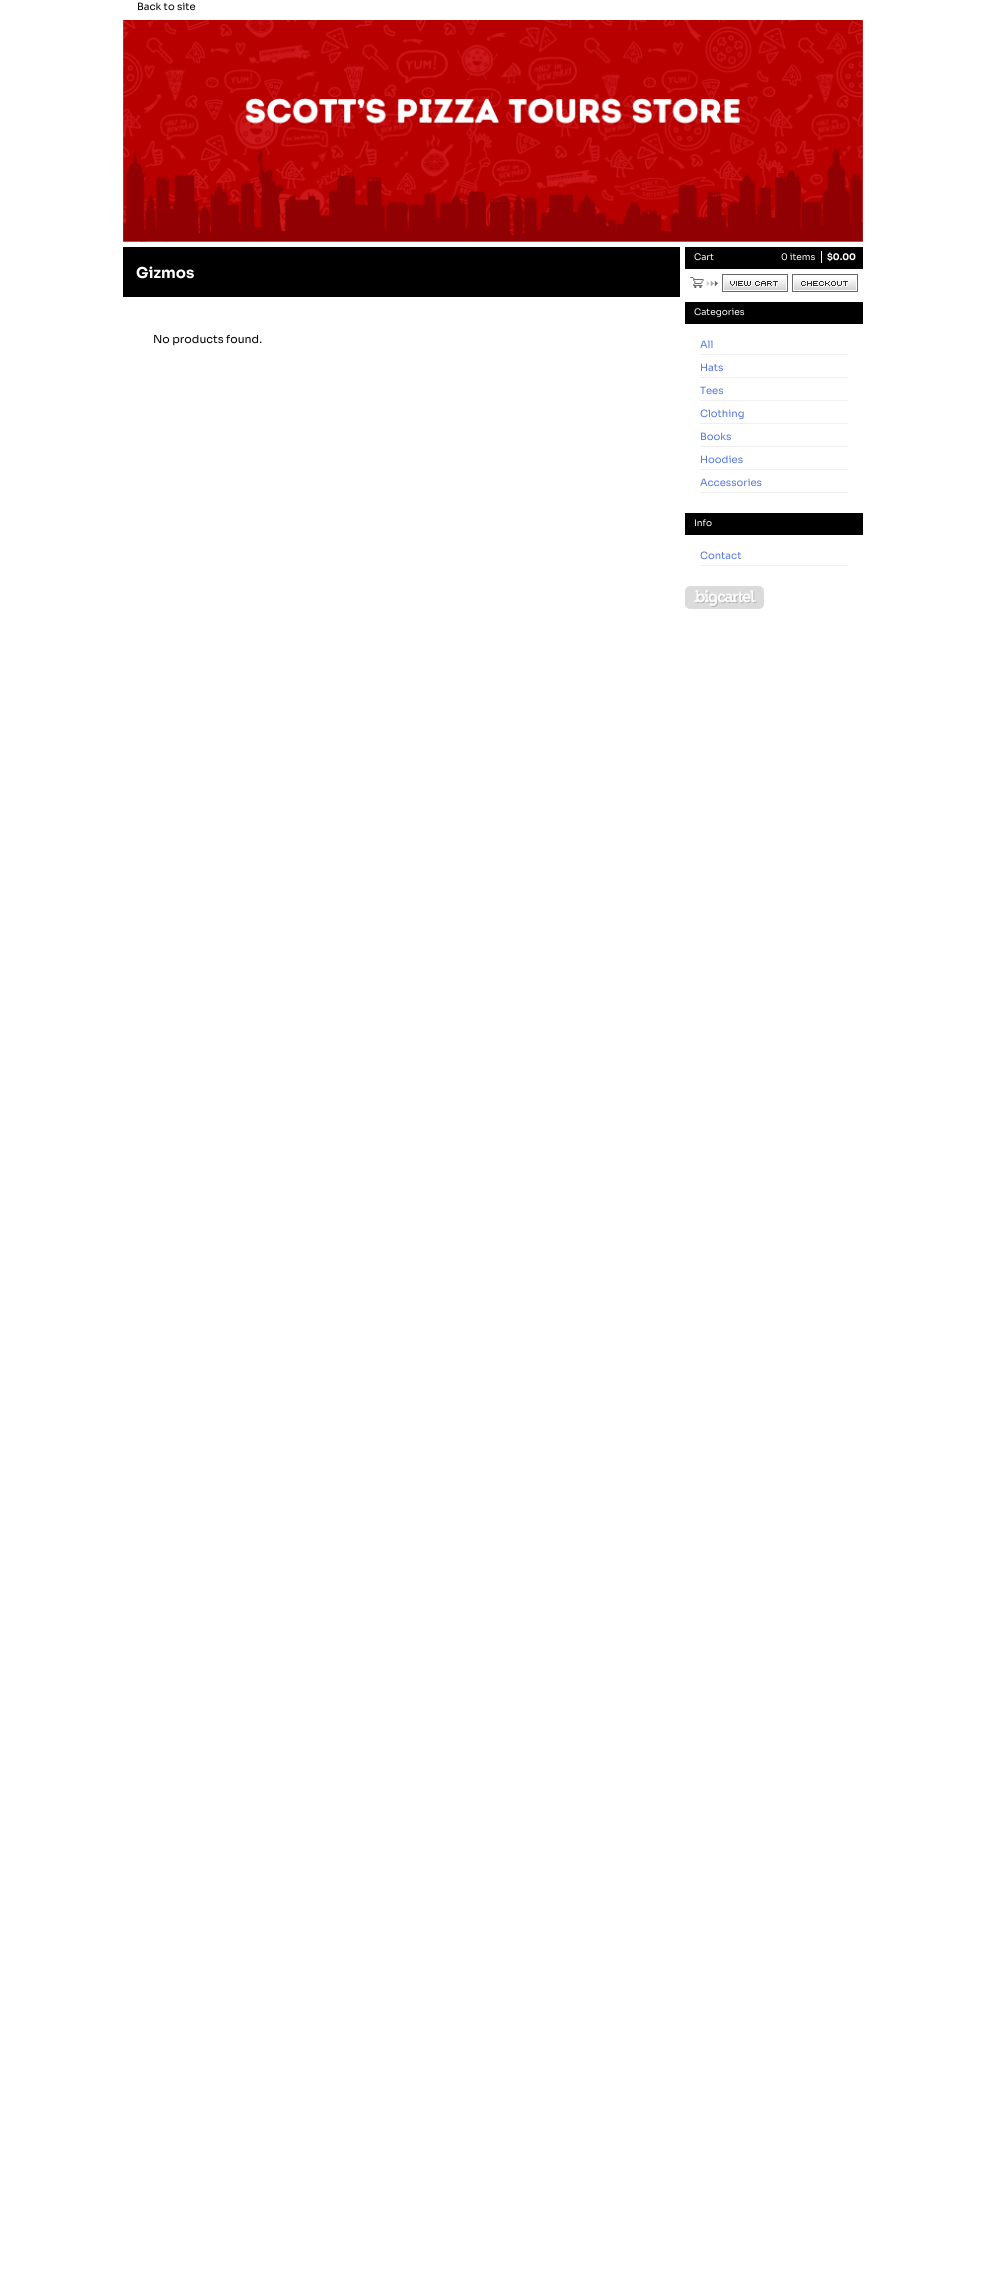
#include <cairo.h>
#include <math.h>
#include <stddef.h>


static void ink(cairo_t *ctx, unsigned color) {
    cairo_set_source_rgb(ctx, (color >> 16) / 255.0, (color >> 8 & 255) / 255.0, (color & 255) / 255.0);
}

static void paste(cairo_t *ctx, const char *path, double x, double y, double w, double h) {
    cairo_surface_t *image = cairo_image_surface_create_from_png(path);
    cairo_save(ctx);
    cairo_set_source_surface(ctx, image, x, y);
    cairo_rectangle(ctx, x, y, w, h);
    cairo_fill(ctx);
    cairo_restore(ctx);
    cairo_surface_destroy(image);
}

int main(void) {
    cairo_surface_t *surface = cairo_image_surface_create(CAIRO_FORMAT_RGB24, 985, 2281);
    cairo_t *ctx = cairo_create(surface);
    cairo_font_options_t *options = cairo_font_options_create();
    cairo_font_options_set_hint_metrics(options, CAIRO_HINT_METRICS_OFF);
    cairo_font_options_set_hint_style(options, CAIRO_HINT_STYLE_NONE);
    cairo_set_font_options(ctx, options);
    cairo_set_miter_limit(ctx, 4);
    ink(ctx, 0xFFFFFF);
    cairo_paint(ctx);
    cairo_select_font_face(ctx, "Sora", CAIRO_FONT_SLANT_NORMAL, CAIRO_FONT_WEIGHT_NORMAL);
    cairo_set_font_size(ctx, 10);
    ink(ctx, 0x000000);
    cairo_move_to(ctx, 137, 10);
    cairo_show_text(ctx, "Back to site");
    paste(ctx, "media/1.png", 123, 20, 740, 222);
    cairo_rectangle(ctx, 123, 247, 557, 50);
    cairo_fill(ctx);
    cairo_select_font_face(ctx, "Sora", CAIRO_FONT_SLANT_NORMAL, CAIRO_FONT_WEIGHT_BOLD);
    cairo_set_font_size(ctx, 15);
    ink(ctx, 0xFFFFFF);
    cairo_move_to(ctx, 136, 278);
    cairo_show_text(ctx, "Gizmos");
    cairo_select_font_face(ctx, "Sora", CAIRO_FONT_SLANT_NORMAL, CAIRO_FONT_WEIGHT_NORMAL);
    cairo_set_font_size(ctx, 11);
    ink(ctx, 0x000000);
    cairo_move_to(ctx, 153, 343);
    cairo_show_text(ctx, "No products found.");
    paste(ctx, "media/2.png", 690, 277, 28, 11);
    cairo_rectangle(ctx, 685, 247, 178, 22);
    cairo_fill(ctx);
    cairo_set_font_size(ctx, 9);
    ink(ctx, 0xFFFFFF);
    cairo_move_to(ctx, 694, 260);
    cairo_show_text(ctx, "Cart");
    cairo_move_to(ctx, 781, 260);
    cairo_show_text(ctx, "0 items");
    cairo_rectangle(ctx, 821, 251, 1, 12);
    cairo_fill(ctx);
    cairo_select_font_face(ctx, "Sora", CAIRO_FONT_SLANT_NORMAL, CAIRO_FONT_WEIGHT_BOLD);
    cairo_move_to(ctx, 827, 260);
    cairo_show_text(ctx, "$0.00");
    paste(ctx, "media/3.png", 722, 274, 66, 18);
    paste(ctx, "media/4.png", 792, 274, 66, 18);
    ink(ctx, 0x000000);
    cairo_rectangle(ctx, 685, 302, 178, 22);
    cairo_fill(ctx);
    cairo_select_font_face(ctx, "Sora", CAIRO_FONT_SLANT_NORMAL, CAIRO_FONT_WEIGHT_NORMAL);
    ink(ctx, 0xFFFFFF);
    cairo_move_to(ctx, 694, 315);
    cairo_show_text(ctx, "Categories");
    ink(ctx, 0xEFEFEF);
    cairo_rectangle(ctx, 700, 354, 148, 1);
    cairo_fill(ctx);
    cairo_set_font_size(ctx, 10);
    ink(ctx, 0x5575DD);
    cairo_move_to(ctx, 700, 348);
    cairo_show_text(ctx, "All");
    ink(ctx, 0xEFEFEF);
    cairo_rectangle(ctx, 700, 377, 148, 1);
    cairo_fill(ctx);
    ink(ctx, 0x5575DD);
    cairo_move_to(ctx, 700, 371);
    cairo_show_text(ctx, "Hats");
    ink(ctx, 0xEFEFEF);
    cairo_rectangle(ctx, 700, 400, 148, 1);
    cairo_fill(ctx);
    ink(ctx, 0x5575DD);
    cairo_move_to(ctx, 700, 394);
    cairo_show_text(ctx, "Tees");
    ink(ctx, 0xEFEFEF);
    cairo_rectangle(ctx, 700, 423, 148, 1);
    cairo_fill(ctx);
    ink(ctx, 0x5575DD);
    cairo_move_to(ctx, 700, 417);
    cairo_show_text(ctx, "Clothing");
    ink(ctx, 0xEFEFEF);
    cairo_rectangle(ctx, 700, 446, 148, 1);
    cairo_fill(ctx);
    ink(ctx, 0x5575DD);
    cairo_move_to(ctx, 700, 440);
    cairo_show_text(ctx, "Books");
    ink(ctx, 0xEFEFEF);
    cairo_rectangle(ctx, 700, 469, 148, 1);
    cairo_fill(ctx);
    ink(ctx, 0x5575DD);
    cairo_move_to(ctx, 700, 463);
    cairo_show_text(ctx, "Hoodies");
    ink(ctx, 0xEFEFEF);
    cairo_rectangle(ctx, 700, 492, 148, 1);
    cairo_fill(ctx);
    ink(ctx, 0x5575DD);
    cairo_move_to(ctx, 700, 486);
    cairo_show_text(ctx, "Accessories");
    ink(ctx, 0x000000);
    cairo_rectangle(ctx, 685, 513, 178, 22);
    cairo_fill(ctx);
    cairo_set_font_size(ctx, 9);
    ink(ctx, 0xFFFFFF);
    cairo_move_to(ctx, 694, 526);
    cairo_show_text(ctx, "Info");
    ink(ctx, 0xEFEFEF);
    cairo_rectangle(ctx, 700, 565, 148, 1);
    cairo_fill(ctx);
    cairo_set_font_size(ctx, 10);
    ink(ctx, 0x5575DD);
    cairo_move_to(ctx, 700, 559);
    cairo_show_text(ctx, "Contact");
    paste(ctx, "media/5.png", 685, 586, 79, 23);
    cairo_surface_write_to_png(surface, "image.png");
    cairo_font_options_destroy(options);
    cairo_destroy(ctx);
    cairo_surface_destroy(surface);
    return 0;
}
